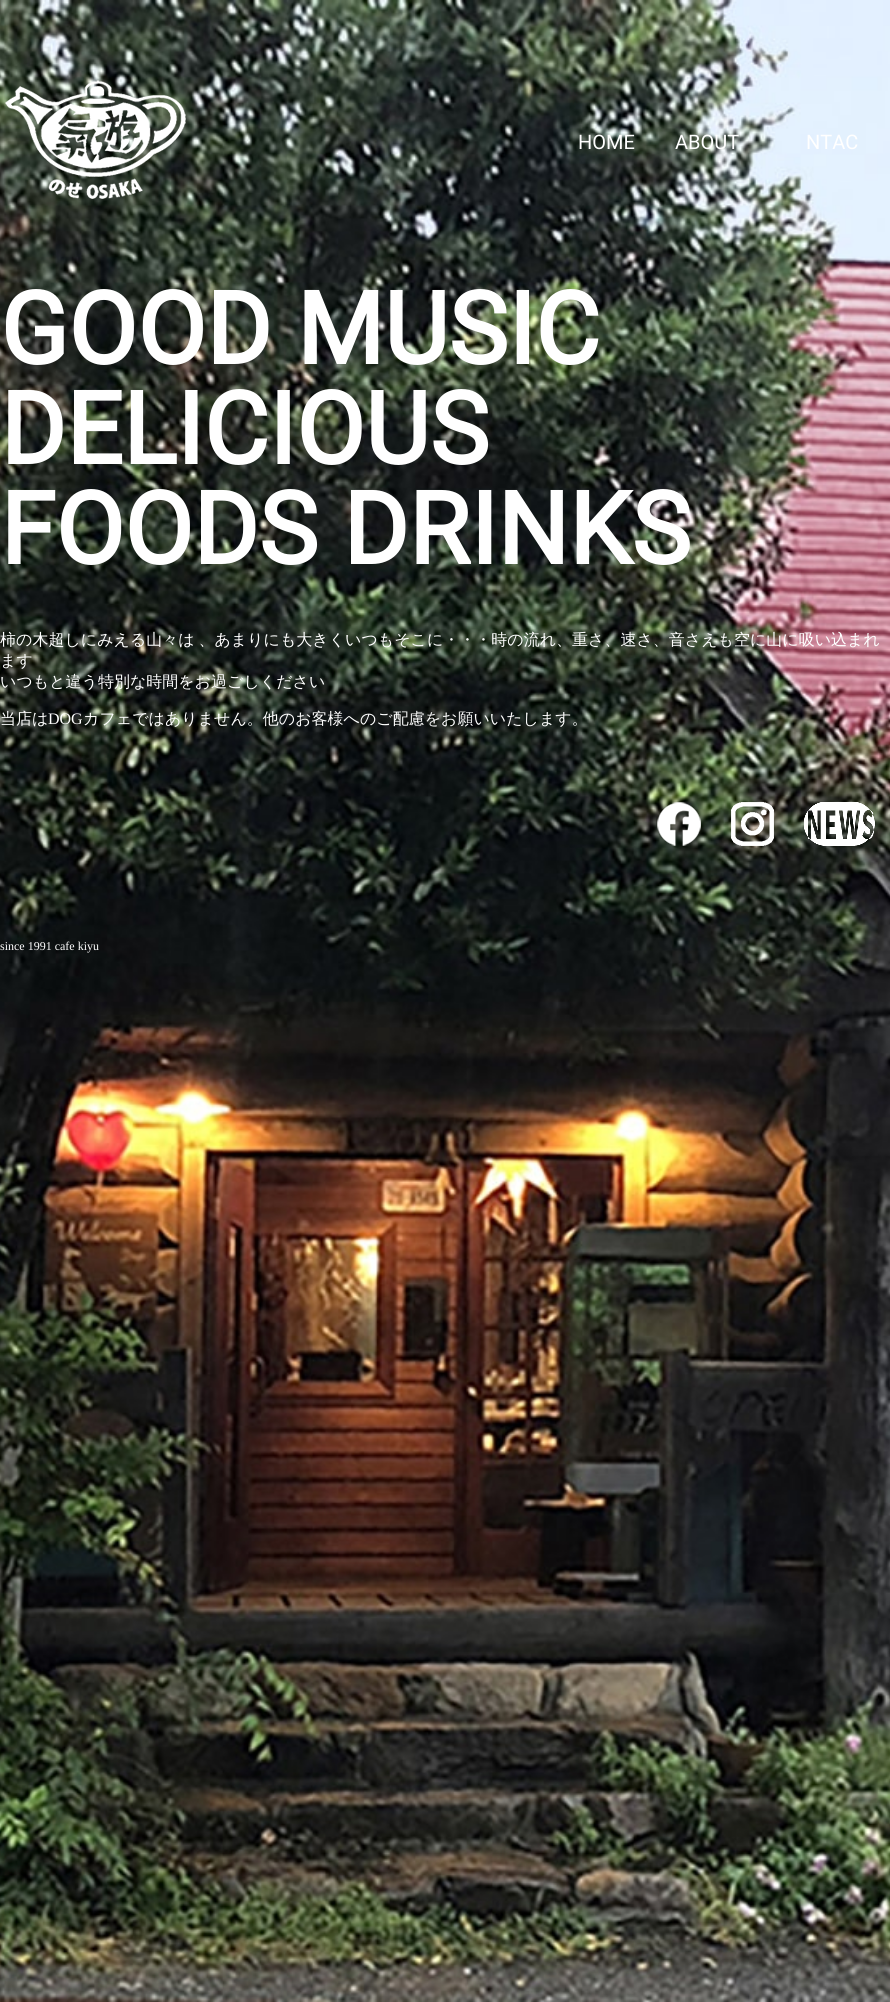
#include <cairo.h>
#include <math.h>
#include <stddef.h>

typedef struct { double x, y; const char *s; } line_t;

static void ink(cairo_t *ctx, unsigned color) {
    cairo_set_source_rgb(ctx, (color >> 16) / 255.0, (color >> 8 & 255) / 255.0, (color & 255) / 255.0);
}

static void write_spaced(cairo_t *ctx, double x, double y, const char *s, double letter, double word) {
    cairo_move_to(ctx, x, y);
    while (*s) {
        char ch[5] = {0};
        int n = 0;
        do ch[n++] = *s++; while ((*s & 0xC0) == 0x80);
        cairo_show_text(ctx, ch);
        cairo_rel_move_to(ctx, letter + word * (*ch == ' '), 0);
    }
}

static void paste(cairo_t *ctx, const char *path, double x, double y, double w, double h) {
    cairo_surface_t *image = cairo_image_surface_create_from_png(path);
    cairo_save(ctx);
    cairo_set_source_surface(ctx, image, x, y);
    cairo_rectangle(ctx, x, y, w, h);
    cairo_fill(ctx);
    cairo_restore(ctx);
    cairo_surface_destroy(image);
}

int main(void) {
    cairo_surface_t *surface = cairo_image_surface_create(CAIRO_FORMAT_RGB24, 890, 2002);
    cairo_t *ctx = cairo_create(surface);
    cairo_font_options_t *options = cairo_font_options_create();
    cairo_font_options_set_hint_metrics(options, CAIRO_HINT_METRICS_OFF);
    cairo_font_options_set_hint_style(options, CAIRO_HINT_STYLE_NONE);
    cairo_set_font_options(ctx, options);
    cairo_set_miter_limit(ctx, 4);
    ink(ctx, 0xFFFFFF);
    cairo_paint(ctx);
    paste(ctx, "media/1.png", 0, 0, 890, 2002);
    paste(ctx, "media/2.png", 5, 80, 181, 119);
    cairo_select_font_face(ctx, "Roboto", CAIRO_FONT_SLANT_NORMAL, CAIRO_FONT_WEIGHT_NORMAL);
    cairo_set_font_size(ctx, 20);
    ink(ctx, 0xFFFFFF);
    {
        static const line_t items[] = {
            {578, 149, "HOME"},
            {675, 149, "ABOUT"},
            {806, 149, "NTAC"},
        };
        for (size_t i = 0; i < sizeof items / sizeof *items; i++) {
            cairo_move_to(ctx, items[i].x, items[i].y);
            cairo_show_text(ctx, items[i].s);
        }
    }
    cairo_select_font_face(ctx, "Roboto", CAIRO_FONT_SLANT_NORMAL, CAIRO_FONT_WEIGHT_BOLD);
    cairo_set_font_size(ctx, 100);
    {
        static const line_t items[] = {
            {0, 364, "GOOD MUSIC"},
            {0, 464, "DELICIOUS"},
            {0, 564, "FOODS DRINKS"},
        };
        for (size_t i = 0; i < sizeof items / sizeof *items; i++) {
            cairo_move_to(ctx, items[i].x, items[i].y);
            cairo_show_text(ctx, items[i].s);
        }
    }
    cairo_select_font_face(ctx, "WenQuanYi Zen Hei Medium", CAIRO_FONT_SLANT_NORMAL, CAIRO_FONT_WEIGHT_NORMAL);
    cairo_set_font_size(ctx, 16);
    write_spaced(ctx, 0, 645, "柿の木超しにみえる山々は 、あまりにも大きくいつもそこに・・・時の流れ、重さ、速さ、音さえも空に山に吸い込まれ", 0, -1);
    {
        static const line_t items[] = {
            {0, 666, "ます"},
            {0, 687, "いつもと違う特別な時間をお過ごしください"},
            {0, 724, "当店は"},
        };
        for (size_t i = 0; i < sizeof items / sizeof *items; i++) {
            cairo_move_to(ctx, items[i].x, items[i].y);
            cairo_show_text(ctx, items[i].s);
        }
    }
    cairo_select_font_face(ctx, "Liberation Serif", CAIRO_FONT_SLANT_NORMAL, CAIRO_FONT_WEIGHT_NORMAL);
    cairo_move_to(ctx, 48, 724);
    cairo_show_text(ctx, "DOG");
    cairo_select_font_face(ctx, "WenQuanYi Zen Hei Medium", CAIRO_FONT_SLANT_NORMAL, CAIRO_FONT_WEIGHT_NORMAL);
    cairo_move_to(ctx, 83, 724);
    cairo_show_text(ctx, "カフェではありません。他のお客様へのご配慮をお願いいたします。");
    paste(ctx, "media/3.png", 657, 802, 44, 44);
    paste(ctx, "media/4.png", 731, 802, 43, 44);
    paste(ctx, "media/5.png", 804, 802, 71, 44);
    cairo_select_font_face(ctx, "Liberation Serif", CAIRO_FONT_SLANT_NORMAL, CAIRO_FONT_WEIGHT_NORMAL);
    cairo_set_font_size(ctx, 12);
    cairo_move_to(ctx, 0, 950);
    cairo_show_text(ctx, "since 1991 cafe kiyu");
    cairo_surface_write_to_png(surface, "image.png");
    cairo_font_options_destroy(options);
    cairo_destroy(ctx);
    cairo_surface_destroy(surface);
    return 0;
}
